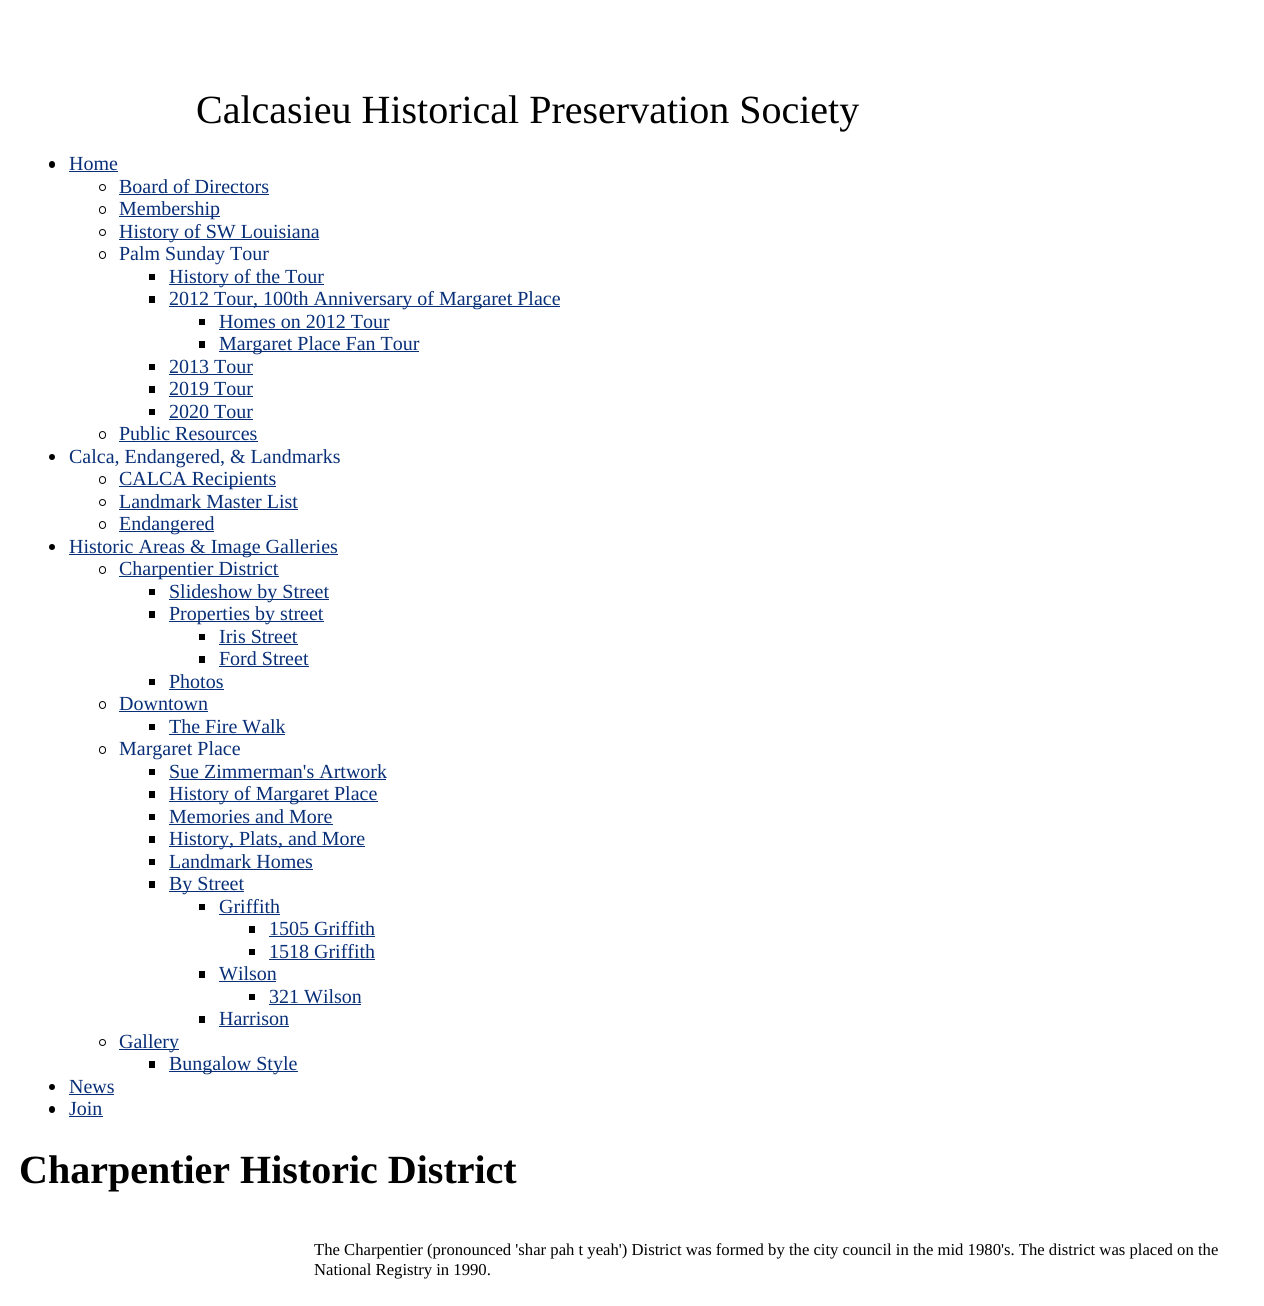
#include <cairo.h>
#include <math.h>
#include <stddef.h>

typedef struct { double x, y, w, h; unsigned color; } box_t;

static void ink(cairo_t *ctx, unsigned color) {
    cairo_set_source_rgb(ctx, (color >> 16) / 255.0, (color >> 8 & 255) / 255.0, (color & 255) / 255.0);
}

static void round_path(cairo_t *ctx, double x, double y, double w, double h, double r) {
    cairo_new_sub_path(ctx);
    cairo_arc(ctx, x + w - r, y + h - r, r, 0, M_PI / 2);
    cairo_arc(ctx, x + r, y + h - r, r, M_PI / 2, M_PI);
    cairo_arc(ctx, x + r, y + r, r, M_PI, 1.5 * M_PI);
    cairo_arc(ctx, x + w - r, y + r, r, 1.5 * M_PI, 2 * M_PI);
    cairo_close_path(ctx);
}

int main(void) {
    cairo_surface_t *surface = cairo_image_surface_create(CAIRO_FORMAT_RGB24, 1264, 1306);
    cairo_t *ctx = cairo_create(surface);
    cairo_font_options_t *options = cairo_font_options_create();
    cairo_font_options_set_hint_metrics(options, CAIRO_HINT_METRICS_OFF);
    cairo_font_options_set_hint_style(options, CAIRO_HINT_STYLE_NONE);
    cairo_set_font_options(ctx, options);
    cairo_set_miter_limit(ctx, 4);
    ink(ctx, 0xFFFFFF);
    cairo_paint(ctx);
    cairo_select_font_face(ctx, "Liberation Serif", CAIRO_FONT_SLANT_NORMAL, CAIRO_FONT_WEIGHT_NORMAL);
    cairo_set_font_size(ctx, 40);
    ink(ctx, 0x000000);
    cairo_move_to(ctx, 196, 123);
    cairo_show_text(ctx, "Calcasieu Historical Preservation Society");
    round_path(ctx, 49, 161, 6, 7, 3);
    cairo_fill(ctx);
    cairo_set_font_size(ctx, 20);
    ink(ctx, 0x082F78);
    cairo_move_to(ctx, 69, 170);
    cairo_show_text(ctx, "Home");
    cairo_rectangle(ctx, 69, 171, 49, 1);
    cairo_fill(ctx);
    cairo_arc(ctx, 102.5, 187.5, 3, 0, 2 * M_PI);
    ink(ctx, 0x000000);
    cairo_set_line_width(ctx, 1);
    cairo_stroke(ctx);
    ink(ctx, 0x082F78);
    cairo_move_to(ctx, 119, 193);
    cairo_show_text(ctx, "Board of Directors");
    cairo_rectangle(ctx, 119, 194, 150, 1);
    cairo_fill(ctx);
    round_path(ctx, 99.5, 206.5, 6, 7, 3);
    ink(ctx, 0x000000);
    cairo_stroke(ctx);
    ink(ctx, 0x082F78);
    cairo_rectangle(ctx, 119, 216, 101, 1);
    cairo_fill(ctx);
    cairo_move_to(ctx, 119, 215);
    cairo_show_text(ctx, "Membership");
    cairo_new_path(ctx);
    cairo_arc(ctx, 102.5, 232.5, 3, 0, 2 * M_PI);
    ink(ctx, 0x000000);
    cairo_stroke(ctx);
    ink(ctx, 0x082F78);
    cairo_rectangle(ctx, 119, 239, 200, 1);
    cairo_fill(ctx);
    cairo_move_to(ctx, 119, 238);
    cairo_show_text(ctx, "History of SW Louisiana");
    round_path(ctx, 99.5, 251.5, 6, 7, 3);
    ink(ctx, 0x000000);
    cairo_stroke(ctx);
    ink(ctx, 0x082F78);
    cairo_move_to(ctx, 119, 260);
    cairo_show_text(ctx, "Palm Sunday Tour");
    ink(ctx, 0x000000);
    cairo_rectangle(ctx, 149, 274, 6, 6);
    cairo_fill(ctx);
    ink(ctx, 0x082F78);
    cairo_rectangle(ctx, 169, 284, 155, 1);
    cairo_fill(ctx);
    cairo_move_to(ctx, 169, 283);
    cairo_show_text(ctx, "History of the Tour");
    ink(ctx, 0x000000);
    cairo_rectangle(ctx, 149, 296, 6, 7);
    cairo_fill(ctx);
    ink(ctx, 0x082F78);
    cairo_rectangle(ctx, 169, 306, 391, 1);
    cairo_fill(ctx);
    cairo_move_to(ctx, 169, 305);
    cairo_show_text(ctx, "2012 Tour, 100th Anniversary of Margaret Place");
    ink(ctx, 0x000000);
    cairo_rectangle(ctx, 199, 319, 6, 6);
    cairo_fill(ctx);
    ink(ctx, 0x082F78);
    cairo_move_to(ctx, 219, 328);
    cairo_show_text(ctx, "Homes on 2012 Tour");
    {
        static const box_t items[] = {
            {219, 329, 170, 1, 0x082F78},
            {199, 341, 6, 7, 0x000000},
            {219, 351, 200, 1, 0x082F78},
        };
        for (size_t i = 0; i < sizeof items / sizeof *items; i++) {
            ink(ctx, items[i].color);
            cairo_rectangle(ctx, items[i].x, items[i].y, items[i].w, items[i].h);
            cairo_fill(ctx);
        }
    }
    cairo_move_to(ctx, 219, 350);
    cairo_show_text(ctx, "Margaret Place Fan Tour");
    ink(ctx, 0x000000);
    cairo_rectangle(ctx, 149, 364, 6, 6);
    cairo_fill(ctx);
    ink(ctx, 0x082F78);
    cairo_move_to(ctx, 169, 373);
    cairo_show_text(ctx, "2013 Tour");
    cairo_rectangle(ctx, 169, 374, 84, 1);
    cairo_fill(ctx);
    ink(ctx, 0x000000);
    cairo_rectangle(ctx, 149, 386, 6, 7);
    cairo_fill(ctx);
    ink(ctx, 0x082F78);
    cairo_move_to(ctx, 169, 395);
    cairo_show_text(ctx, "2019 Tour");
    cairo_rectangle(ctx, 169, 396, 84, 1);
    cairo_fill(ctx);
    ink(ctx, 0x000000);
    cairo_rectangle(ctx, 149, 409, 6, 6);
    cairo_fill(ctx);
    ink(ctx, 0x082F78);
    cairo_move_to(ctx, 169, 418);
    cairo_show_text(ctx, "2020 Tour");
    cairo_rectangle(ctx, 169, 419, 84, 1);
    cairo_fill(ctx);
    round_path(ctx, 99.5, 431.5, 6, 7, 3);
    ink(ctx, 0x000000);
    cairo_stroke(ctx);
    ink(ctx, 0x082F78);
    cairo_move_to(ctx, 119, 440);
    cairo_show_text(ctx, "Public Resources");
    cairo_rectangle(ctx, 119, 441, 139, 1);
    cairo_fill(ctx);
    ink(ctx, 0x000000);
    cairo_arc(ctx, 52, 457, 3, 0, 2 * M_PI);
    cairo_fill(ctx);
    ink(ctx, 0x082F78);
    cairo_move_to(ctx, 69, 463);
    cairo_show_text(ctx, "Calca, Endangered, & Landmarks");
    round_path(ctx, 99.5, 476.5, 6, 7, 3);
    ink(ctx, 0x000000);
    cairo_stroke(ctx);
    ink(ctx, 0x082F78);
    cairo_rectangle(ctx, 119, 486, 157, 1);
    cairo_fill(ctx);
    cairo_move_to(ctx, 119, 485);
    cairo_show_text(ctx, "CALCA Recipients");
    cairo_new_path(ctx);
    cairo_arc(ctx, 102.5, 502.5, 3, 0, 2 * M_PI);
    ink(ctx, 0x000000);
    cairo_stroke(ctx);
    ink(ctx, 0x082F78);
    cairo_move_to(ctx, 119, 508);
    cairo_show_text(ctx, "Landmark Master List");
    cairo_rectangle(ctx, 119, 509, 179, 1);
    cairo_fill(ctx);
    round_path(ctx, 99.5, 521.5, 6, 7, 3);
    ink(ctx, 0x000000);
    cairo_stroke(ctx);
    ink(ctx, 0x082F78);
    cairo_rectangle(ctx, 119, 531, 95, 1);
    cairo_fill(ctx);
    cairo_move_to(ctx, 119, 530);
    cairo_show_text(ctx, "Endangered");
    ink(ctx, 0x000000);
    cairo_new_path(ctx);
    cairo_arc(ctx, 52, 547, 3, 0, 2 * M_PI);
    cairo_fill(ctx);
    ink(ctx, 0x082F78);
    cairo_rectangle(ctx, 69, 554, 269, 1);
    cairo_fill(ctx);
    cairo_move_to(ctx, 69, 553);
    cairo_show_text(ctx, "Historic Areas & Image Galleries");
    round_path(ctx, 99.5, 566.5, 6, 7, 3);
    ink(ctx, 0x000000);
    cairo_stroke(ctx);
    ink(ctx, 0x082F78);
    cairo_rectangle(ctx, 119, 576, 160, 1);
    cairo_fill(ctx);
    cairo_move_to(ctx, 119, 575);
    cairo_show_text(ctx, "Charpentier District");
    ink(ctx, 0x000000);
    cairo_rectangle(ctx, 149, 589, 6, 6);
    cairo_fill(ctx);
    ink(ctx, 0x082F78);
    cairo_rectangle(ctx, 169, 599, 160, 1);
    cairo_fill(ctx);
    cairo_move_to(ctx, 169, 598);
    cairo_show_text(ctx, "Slideshow by Street");
    ink(ctx, 0x000000);
    cairo_rectangle(ctx, 149, 611, 6, 7);
    cairo_fill(ctx);
    ink(ctx, 0x082F78);
    cairo_rectangle(ctx, 169, 621, 155, 1);
    cairo_fill(ctx);
    cairo_move_to(ctx, 169, 620);
    cairo_show_text(ctx, "Properties by street");
    ink(ctx, 0x000000);
    cairo_rectangle(ctx, 199, 634, 6, 6);
    cairo_fill(ctx);
    ink(ctx, 0x082F78);
    cairo_move_to(ctx, 219, 643);
    cairo_show_text(ctx, "Iris Street");
    cairo_rectangle(ctx, 219, 644, 79, 1);
    cairo_fill(ctx);
    ink(ctx, 0x000000);
    cairo_rectangle(ctx, 199, 656, 6, 7);
    cairo_fill(ctx);
    ink(ctx, 0x082F78);
    cairo_move_to(ctx, 219, 665);
    cairo_show_text(ctx, "Ford Street");
    cairo_rectangle(ctx, 219, 666, 90, 1);
    cairo_fill(ctx);
    ink(ctx, 0x000000);
    cairo_rectangle(ctx, 149, 679, 6, 6);
    cairo_fill(ctx);
    ink(ctx, 0x082F78);
    cairo_move_to(ctx, 169, 688);
    cairo_show_text(ctx, "Photos");
    cairo_rectangle(ctx, 169, 689, 55, 1);
    cairo_fill(ctx);
    round_path(ctx, 99.5, 701.5, 6, 7, 3);
    ink(ctx, 0x000000);
    cairo_stroke(ctx);
    ink(ctx, 0x082F78);
    cairo_move_to(ctx, 119, 710);
    cairo_show_text(ctx, "Downtown");
    cairo_rectangle(ctx, 119, 711, 89, 1);
    cairo_fill(ctx);
    ink(ctx, 0x000000);
    cairo_rectangle(ctx, 149, 724, 6, 6);
    cairo_fill(ctx);
    ink(ctx, 0x082F78);
    cairo_move_to(ctx, 169, 733);
    cairo_show_text(ctx, "The Fire Walk");
    cairo_rectangle(ctx, 169, 734, 116, 1);
    cairo_fill(ctx);
    round_path(ctx, 99.5, 746.5, 6, 7, 3);
    ink(ctx, 0x000000);
    cairo_stroke(ctx);
    ink(ctx, 0x082F78);
    cairo_move_to(ctx, 119, 755);
    cairo_show_text(ctx, "Margaret Place");
    ink(ctx, 0x000000);
    cairo_rectangle(ctx, 149, 769, 6, 6);
    cairo_fill(ctx);
    ink(ctx, 0x082F78);
    cairo_move_to(ctx, 169, 778);
    cairo_show_text(ctx, "Sue Zimmerman's Artwork");
    {
        static const box_t items[] = {
            {169, 779, 217, 1, 0x082F78},
            {149, 791, 6, 7, 0x000000},
            {169, 801, 209, 1, 0x082F78},
        };
        for (size_t i = 0; i < sizeof items / sizeof *items; i++) {
            ink(ctx, items[i].color);
            cairo_rectangle(ctx, items[i].x, items[i].y, items[i].w, items[i].h);
            cairo_fill(ctx);
        }
    }
    cairo_move_to(ctx, 169, 800);
    cairo_show_text(ctx, "History of Margaret Place");
    ink(ctx, 0x000000);
    cairo_rectangle(ctx, 149, 814, 6, 6);
    cairo_fill(ctx);
    ink(ctx, 0x082F78);
    cairo_move_to(ctx, 169, 823);
    cairo_show_text(ctx, "Memories and More");
    {
        static const box_t items[] = {
            {169, 824, 164, 1, 0x082F78},
            {149, 836, 6, 7, 0x000000},
            {169, 846, 196, 1, 0x082F78},
        };
        for (size_t i = 0; i < sizeof items / sizeof *items; i++) {
            ink(ctx, items[i].color);
            cairo_rectangle(ctx, items[i].x, items[i].y, items[i].w, items[i].h);
            cairo_fill(ctx);
        }
    }
    cairo_move_to(ctx, 169, 845);
    cairo_show_text(ctx, "History, Plats, and More");
    ink(ctx, 0x000000);
    cairo_rectangle(ctx, 149, 859, 6, 6);
    cairo_fill(ctx);
    ink(ctx, 0x082F78);
    cairo_move_to(ctx, 169, 868);
    cairo_show_text(ctx, "Landmark Homes");
    {
        static const box_t items[] = {
            {169, 869, 144, 1, 0x082F78},
            {149, 881, 6, 7, 0x000000},
            {169, 891, 75, 1, 0x082F78},
        };
        for (size_t i = 0; i < sizeof items / sizeof *items; i++) {
            ink(ctx, items[i].color);
            cairo_rectangle(ctx, items[i].x, items[i].y, items[i].w, items[i].h);
            cairo_fill(ctx);
        }
    }
    cairo_move_to(ctx, 169, 890);
    cairo_show_text(ctx, "By Street");
    ink(ctx, 0x000000);
    cairo_rectangle(ctx, 199, 904, 6, 6);
    cairo_fill(ctx);
    ink(ctx, 0x082F78);
    cairo_move_to(ctx, 219, 913);
    cairo_show_text(ctx, "Griffith");
    cairo_rectangle(ctx, 219, 914, 61, 1);
    cairo_fill(ctx);
    ink(ctx, 0x000000);
    cairo_rectangle(ctx, 249, 926, 6, 7);
    cairo_fill(ctx);
    ink(ctx, 0x082F78);
    cairo_move_to(ctx, 269, 935);
    cairo_show_text(ctx, "1505 Griffith");
    cairo_rectangle(ctx, 269, 936, 106, 1);
    cairo_fill(ctx);
    ink(ctx, 0x000000);
    cairo_rectangle(ctx, 249, 949, 6, 6);
    cairo_fill(ctx);
    ink(ctx, 0x082F78);
    cairo_move_to(ctx, 269, 958);
    cairo_show_text(ctx, "1518 Griffith");
    cairo_rectangle(ctx, 269, 959, 106, 1);
    cairo_fill(ctx);
    ink(ctx, 0x000000);
    cairo_rectangle(ctx, 199, 971, 6, 7);
    cairo_fill(ctx);
    ink(ctx, 0x082F78);
    cairo_move_to(ctx, 219, 980);
    cairo_show_text(ctx, "Wilson");
    cairo_rectangle(ctx, 219, 981, 57, 1);
    cairo_fill(ctx);
    ink(ctx, 0x000000);
    cairo_rectangle(ctx, 249, 994, 6, 6);
    cairo_fill(ctx);
    ink(ctx, 0x082F78);
    cairo_move_to(ctx, 269, 1003);
    cairo_show_text(ctx, "321 Wilson");
    cairo_rectangle(ctx, 269, 1004, 92, 1);
    cairo_fill(ctx);
    ink(ctx, 0x000000);
    cairo_rectangle(ctx, 199, 1016, 6, 7);
    cairo_fill(ctx);
    ink(ctx, 0x082F78);
    cairo_move_to(ctx, 219, 1025);
    cairo_show_text(ctx, "Harrison");
    cairo_rectangle(ctx, 219, 1026, 70, 1);
    cairo_fill(ctx);
    cairo_arc(ctx, 102.5, 1042.5, 3, 0, 2 * M_PI);
    ink(ctx, 0x000000);
    cairo_stroke(ctx);
    ink(ctx, 0x082F78);
    cairo_rectangle(ctx, 119, 1049, 60, 1);
    cairo_fill(ctx);
    cairo_move_to(ctx, 119, 1048);
    cairo_show_text(ctx, "Gallery");
    ink(ctx, 0x000000);
    cairo_rectangle(ctx, 149, 1061, 6, 7);
    cairo_fill(ctx);
    ink(ctx, 0x082F78);
    cairo_rectangle(ctx, 169, 1071, 129, 1);
    cairo_fill(ctx);
    cairo_move_to(ctx, 169, 1070);
    cairo_show_text(ctx, "Bungalow Style");
    ink(ctx, 0x000000);
    cairo_new_path(ctx);
    cairo_arc(ctx, 52, 1087, 3, 0, 2 * M_PI);
    cairo_fill(ctx);
    ink(ctx, 0x082F78);
    cairo_move_to(ctx, 69, 1093);
    cairo_show_text(ctx, "News");
    cairo_rectangle(ctx, 69, 1094, 45, 1);
    cairo_fill(ctx);
    ink(ctx, 0x000000);
    round_path(ctx, 49, 1106, 6, 7, 3);
    cairo_fill(ctx);
    ink(ctx, 0x082F78);
    cairo_move_to(ctx, 69, 1115);
    cairo_show_text(ctx, "Join");
    cairo_rectangle(ctx, 69, 1116, 34, 1);
    cairo_fill(ctx);
    cairo_select_font_face(ctx, "Liberation Serif", CAIRO_FONT_SLANT_NORMAL, CAIRO_FONT_WEIGHT_BOLD);
    cairo_set_font_size(ctx, 40);
    ink(ctx, 0x000000);
    cairo_move_to(ctx, 19, 1183);
    cairo_show_text(ctx, "Charpentier Historic District");
    cairo_select_font_face(ctx, "Liberation Serif", CAIRO_FONT_SLANT_NORMAL, CAIRO_FONT_WEIGHT_NORMAL);
    cairo_set_font_size(ctx, 16.67);
    cairo_move_to(ctx, 314, 1255);
    cairo_show_text(ctx, "The Charpentier (pronounced 'shar pah t yeah') District was formed by the city council in the mid 1980's. The district was placed on the");
    cairo_move_to(ctx, 314, 1275);
    cairo_show_text(ctx, "National Registry in 1990.");
    cairo_surface_write_to_png(surface, "image.png");
    cairo_font_options_destroy(options);
    cairo_destroy(ctx);
    cairo_surface_destroy(surface);
    return 0;
}
